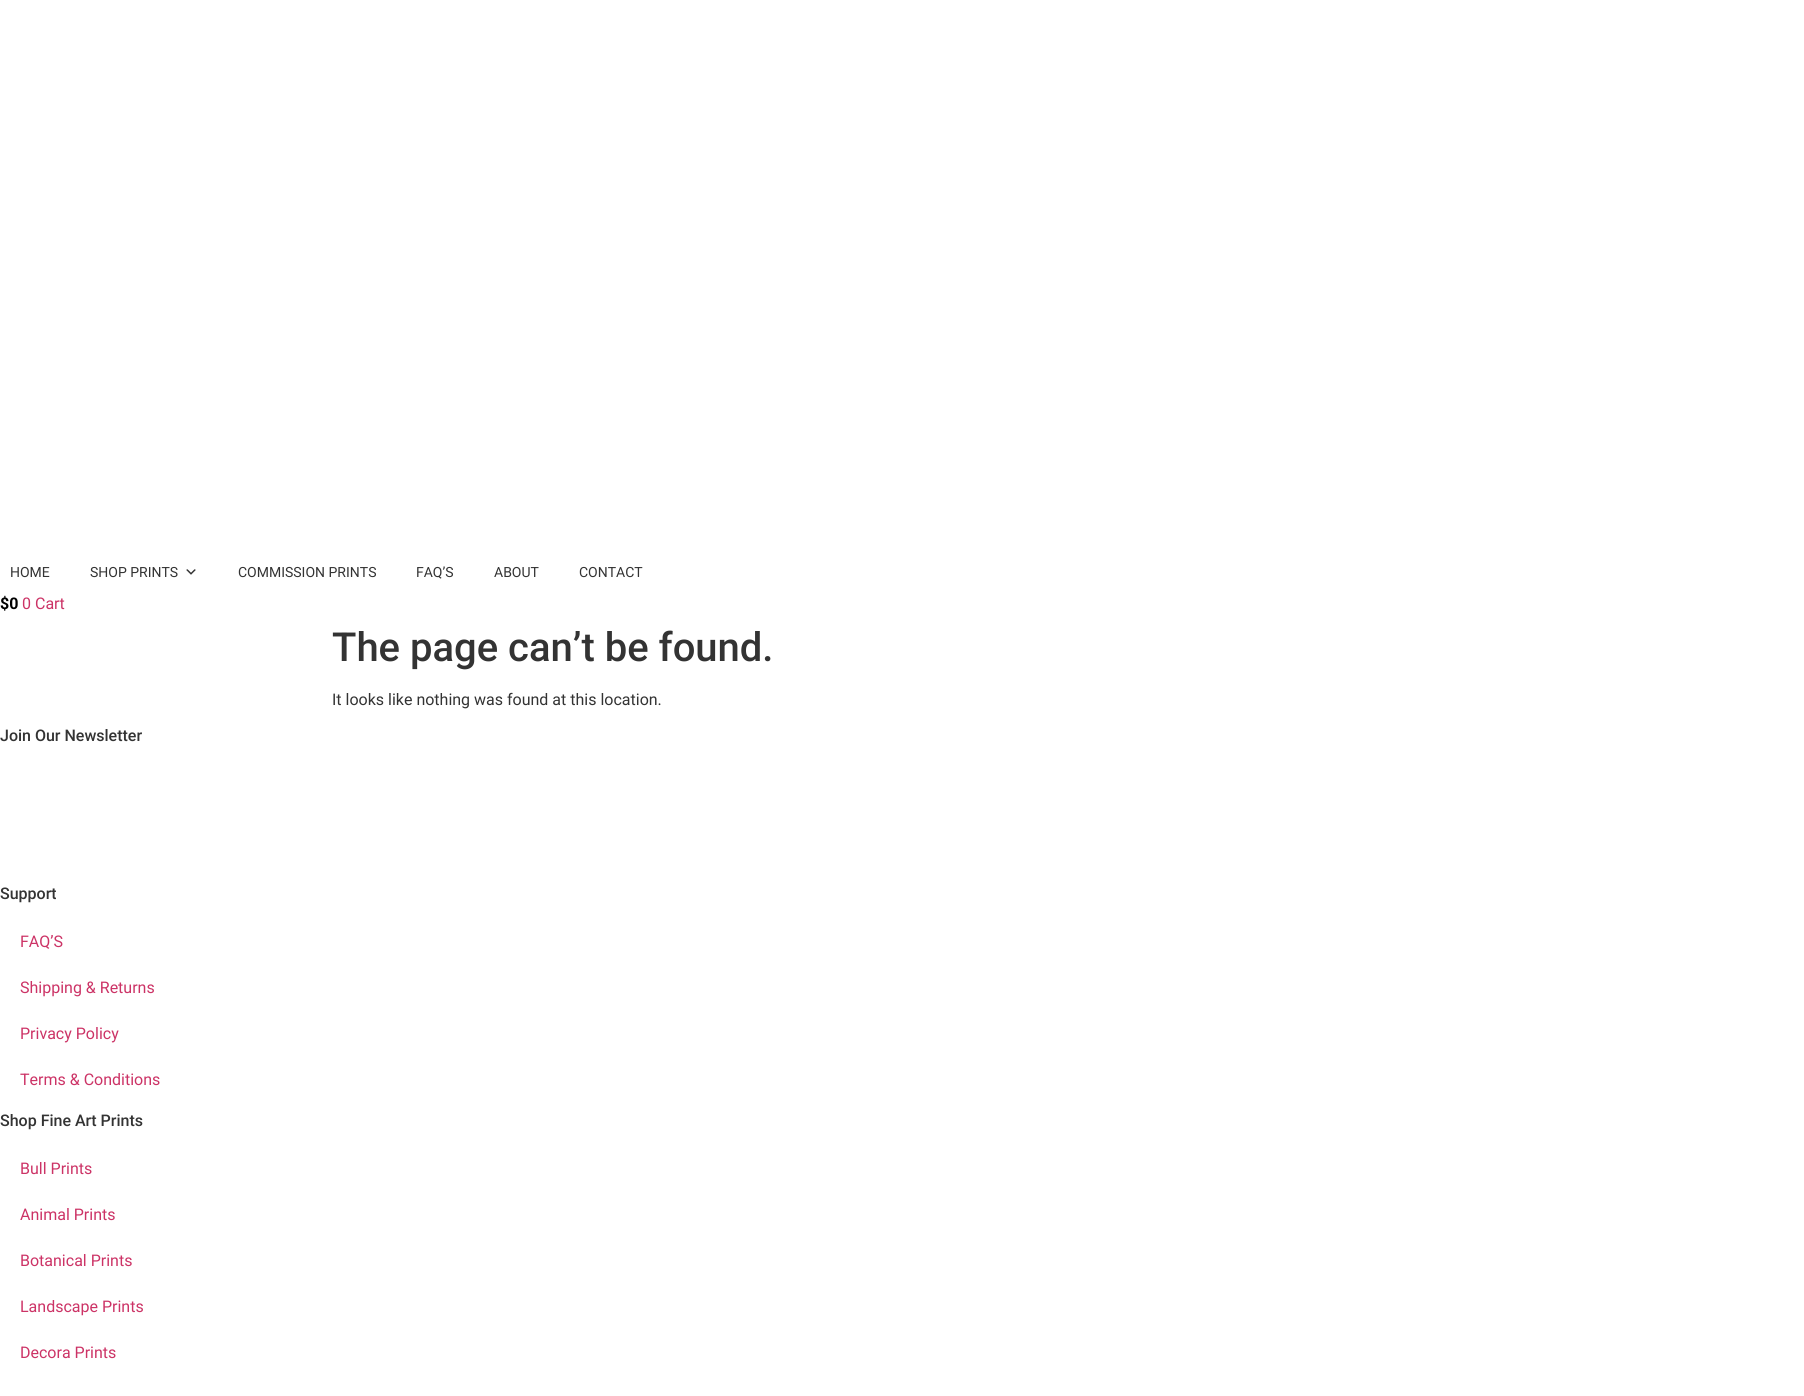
#include <cairo.h>
#include <math.h>
#include <stddef.h>

typedef struct { double x, y; const char *s; } line_t;

static void ink(cairo_t *ctx, unsigned color) {
    cairo_set_source_rgb(ctx, (color >> 16) / 255.0, (color >> 8 & 255) / 255.0, (color & 255) / 255.0);
}

static void paste(cairo_t *ctx, const char *path, double x, double y, double w, double h) {
    cairo_surface_t *image = cairo_image_surface_create_from_png(path);
    cairo_save(ctx);
    cairo_set_source_surface(ctx, image, x, y);
    cairo_rectangle(ctx, x, y, w, h);
    cairo_fill(ctx);
    cairo_restore(ctx);
    cairo_surface_destroy(image);
}

int main(void) {
    cairo_surface_t *surface = cairo_image_surface_create(CAIRO_FORMAT_RGB24, 1804, 1396);
    cairo_t *ctx = cairo_create(surface);
    cairo_font_options_t *options = cairo_font_options_create();
    cairo_font_options_set_hint_metrics(options, CAIRO_HINT_METRICS_OFF);
    cairo_font_options_set_hint_style(options, CAIRO_HINT_STYLE_NONE);
    cairo_set_font_options(ctx, options);
    cairo_set_miter_limit(ctx, 4);
    ink(ctx, 0xFFFFFF);
    cairo_paint(ctx);
    cairo_select_font_face(ctx, "Roboto", CAIRO_FONT_SLANT_NORMAL, CAIRO_FONT_WEIGHT_NORMAL);
    cairo_set_font_size(ctx, 14);
    ink(ctx, 0x333333);
    cairo_move_to(ctx, 10, 577);
    cairo_show_text(ctx, "HOME");
    cairo_move_to(ctx, 90, 577);
    cairo_show_text(ctx, "SHOP PRINTS");
    paste(ctx, "media/1.png", 186, 569, 10, 6);
    {
        static const line_t items[] = {
            {238, 577, "COMMISSION PRINTS"},
            {416, 577, "FAQ’S"},
            {494, 577, "ABOUT"},
            {579, 577, "CONTACT"},
        };
        for (size_t i = 0; i < sizeof items / sizeof *items; i++) {
            cairo_move_to(ctx, items[i].x, items[i].y);
            cairo_show_text(ctx, items[i].s);
        }
    }
    cairo_select_font_face(ctx, "Roboto", CAIRO_FONT_SLANT_NORMAL, CAIRO_FONT_WEIGHT_BOLD);
    cairo_set_font_size(ctx, 16);
    ink(ctx, 0x000000);
    cairo_move_to(ctx, 0, 609);
    cairo_show_text(ctx, "$0");
    cairo_select_font_face(ctx, "Roboto", CAIRO_FONT_SLANT_NORMAL, CAIRO_FONT_WEIGHT_NORMAL);
    ink(ctx, 0xCC3366);
    cairo_move_to(ctx, 22, 609);
    cairo_show_text(ctx, "0 Cart");
    cairo_select_font_face(ctx, "Roboto Medium", CAIRO_FONT_SLANT_NORMAL, CAIRO_FONT_WEIGHT_NORMAL);
    cairo_set_font_size(ctx, 40);
    ink(ctx, 0x333333);
    cairo_move_to(ctx, 332, 661);
    cairo_show_text(ctx, "The page can’t be found.");
    cairo_select_font_face(ctx, "Roboto", CAIRO_FONT_SLANT_NORMAL, CAIRO_FONT_WEIGHT_NORMAL);
    cairo_set_font_size(ctx, 16);
    cairo_move_to(ctx, 332, 705);
    cairo_show_text(ctx, "It looks like nothing was found at this location.");
    cairo_select_font_face(ctx, "Roboto Medium", CAIRO_FONT_SLANT_NORMAL, CAIRO_FONT_WEIGHT_NORMAL);
    cairo_move_to(ctx, 0, 741);
    cairo_show_text(ctx, "Join Our Newsletter");
    cairo_move_to(ctx, 0, 899);
    cairo_show_text(ctx, "Support");
    cairo_select_font_face(ctx, "Roboto", CAIRO_FONT_SLANT_NORMAL, CAIRO_FONT_WEIGHT_NORMAL);
    ink(ctx, 0xCC3366);
    {
        static const line_t items[] = {
            {20, 947, "FAQ’S"},
            {20, 993, "Shipping & Returns"},
            {20, 1039, "Privacy Policy"},
            {20, 1085, "Terms & Conditions"},
        };
        for (size_t i = 0; i < sizeof items / sizeof *items; i++) {
            cairo_move_to(ctx, items[i].x, items[i].y);
            cairo_show_text(ctx, items[i].s);
        }
    }
    cairo_select_font_face(ctx, "Roboto Medium", CAIRO_FONT_SLANT_NORMAL, CAIRO_FONT_WEIGHT_NORMAL);
    ink(ctx, 0x333333);
    cairo_move_to(ctx, 0, 1126);
    cairo_show_text(ctx, "Shop Fine Art Prints");
    cairo_select_font_face(ctx, "Roboto", CAIRO_FONT_SLANT_NORMAL, CAIRO_FONT_WEIGHT_NORMAL);
    ink(ctx, 0xCC3366);
    {
        static const line_t items[] = {
            {20, 1174, "Bull Prints"},
            {20, 1220, "Animal Prints"},
            {20, 1266, "Botanical Prints"},
            {20, 1312, "Landscape Prints"},
            {20, 1358, "Decora Prints"},
        };
        for (size_t i = 0; i < sizeof items / sizeof *items; i++) {
            cairo_move_to(ctx, items[i].x, items[i].y);
            cairo_show_text(ctx, items[i].s);
        }
    }
    cairo_surface_write_to_png(surface, "image.png");
    cairo_font_options_destroy(options);
    cairo_destroy(ctx);
    cairo_surface_destroy(surface);
    return 0;
}
